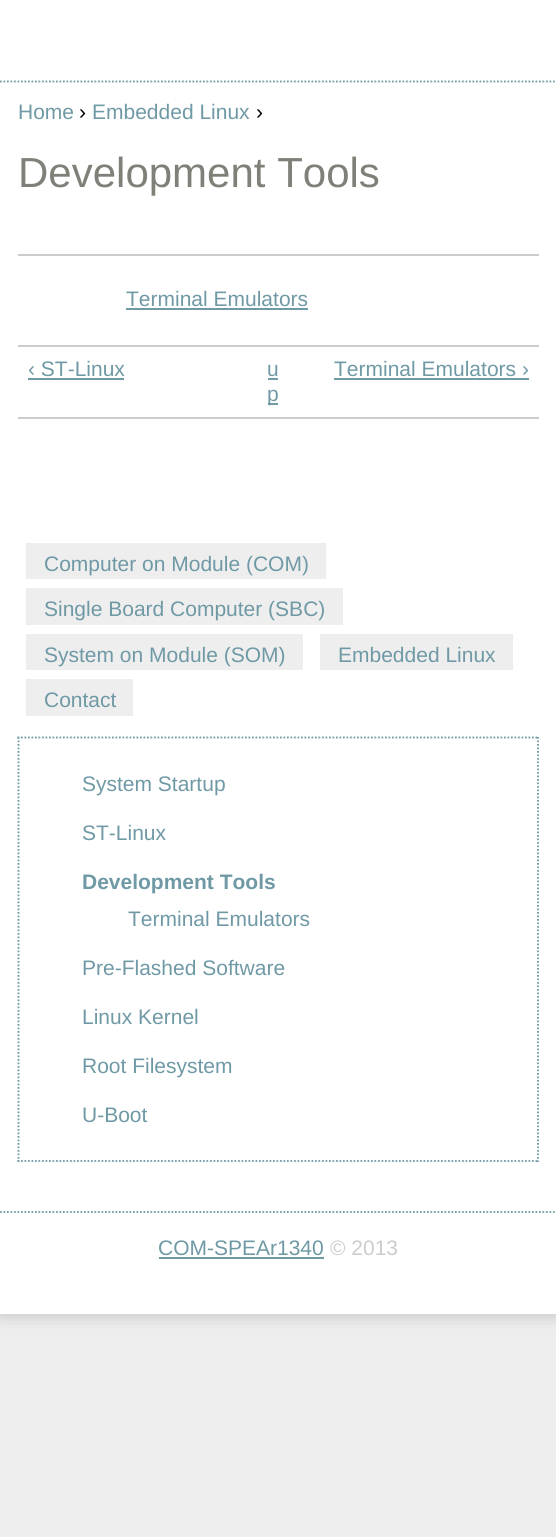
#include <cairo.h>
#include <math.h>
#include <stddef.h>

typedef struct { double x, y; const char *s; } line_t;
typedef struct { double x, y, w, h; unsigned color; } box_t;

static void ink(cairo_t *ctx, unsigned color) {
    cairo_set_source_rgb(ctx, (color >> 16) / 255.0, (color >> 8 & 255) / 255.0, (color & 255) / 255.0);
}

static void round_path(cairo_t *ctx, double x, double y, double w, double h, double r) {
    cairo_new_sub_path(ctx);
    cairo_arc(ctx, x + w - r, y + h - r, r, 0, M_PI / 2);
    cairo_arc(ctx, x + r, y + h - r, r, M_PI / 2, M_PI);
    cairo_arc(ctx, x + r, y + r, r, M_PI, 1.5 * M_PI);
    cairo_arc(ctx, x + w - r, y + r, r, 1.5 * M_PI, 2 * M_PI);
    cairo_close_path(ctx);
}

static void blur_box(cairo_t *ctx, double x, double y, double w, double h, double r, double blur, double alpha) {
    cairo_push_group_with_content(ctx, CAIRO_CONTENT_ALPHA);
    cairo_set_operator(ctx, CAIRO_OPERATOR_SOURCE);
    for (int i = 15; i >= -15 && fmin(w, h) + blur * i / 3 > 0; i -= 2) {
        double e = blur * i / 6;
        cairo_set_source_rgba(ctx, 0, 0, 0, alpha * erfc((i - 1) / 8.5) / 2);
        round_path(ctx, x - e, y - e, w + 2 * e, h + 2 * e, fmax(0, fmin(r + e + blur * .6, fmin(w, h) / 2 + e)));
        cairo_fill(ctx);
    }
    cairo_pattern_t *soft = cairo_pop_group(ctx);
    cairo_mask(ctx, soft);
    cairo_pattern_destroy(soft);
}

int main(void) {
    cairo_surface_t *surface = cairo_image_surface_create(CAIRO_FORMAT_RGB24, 556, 1537);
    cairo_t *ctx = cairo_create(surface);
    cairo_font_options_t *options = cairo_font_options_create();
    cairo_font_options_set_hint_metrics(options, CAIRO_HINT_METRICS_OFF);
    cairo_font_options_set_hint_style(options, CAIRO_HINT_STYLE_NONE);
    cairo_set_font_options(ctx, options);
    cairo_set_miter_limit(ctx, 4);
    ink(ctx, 0xEEEEEE);
    cairo_paint(ctx);
    ink(ctx, 0xBBBBBB);
    blur_box(ctx, 0, 0, 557, 1314, 0, 9, 1);
    ink(ctx, 0xFFFFFF);
    cairo_rectangle(ctx, 0, 0, 556, 1314);
    cairo_fill(ctx);
    cairo_new_path(ctx);
    cairo_move_to(ctx, 0, 81.5);
    cairo_line_to(ctx, 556.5, 81.5);
    ink(ctx, 0x6F99A5);
    cairo_set_line_width(ctx, 1.8);
    cairo_set_dash(ctx, (double[]){1.75, 1.75}, 2, 0);
    cairo_stroke(ctx);
    cairo_select_font_face(ctx, "Liberation Sans", CAIRO_FONT_SLANT_NORMAL, CAIRO_FONT_WEIGHT_NORMAL);
    cairo_set_font_size(ctx, 21);
    cairo_move_to(ctx, 18, 119);
    cairo_show_text(ctx, "Home");
    ink(ctx, 0x000000);
    cairo_move_to(ctx, 79, 119);
    cairo_show_text(ctx, "›");
    ink(ctx, 0x6F99A5);
    cairo_move_to(ctx, 92, 119);
    cairo_show_text(ctx, "Embedded Linux");
    ink(ctx, 0x000000);
    cairo_move_to(ctx, 256, 119);
    cairo_show_text(ctx, "›");
    cairo_set_font_size(ctx, 42);
    ink(ctx, 0x7F8078);
    cairo_move_to(ctx, 18, 187);
    cairo_show_text(ctx, "Development Tools");
    ink(ctx, 0xCCCCCC);
    cairo_rectangle(ctx, 18, 254, 521, 2);
    cairo_fill(ctx);
    cairo_set_font_size(ctx, 21);
    ink(ctx, 0x6F99A5);
    cairo_move_to(ctx, 126, 306);
    cairo_show_text(ctx, "Terminal Emulators");
    {
        static const box_t items[] = {
            {126, 308, 182, 2, 0x6F99A5},
            {18, 345, 521, 2, 0xCCCCCC},
            {18, 417, 521, 2, 0xCCCCCC},
        };
        for (size_t i = 0; i < sizeof items / sizeof *items; i++) {
            ink(ctx, items[i].color);
            cairo_rectangle(ctx, items[i].x, items[i].y, items[i].w, items[i].h);
            cairo_fill(ctx);
        }
    }
    ink(ctx, 0x6F99A5);
    cairo_move_to(ctx, 28, 376);
    cairo_show_text(ctx, "‹ ST-Linux");
    cairo_rectangle(ctx, 28, 378, 96, 2);
    cairo_fill(ctx);
    cairo_move_to(ctx, 267, 376);
    cairo_show_text(ctx, "u");
    cairo_rectangle(ctx, 268, 378, 10, 2);
    cairo_fill(ctx);
    cairo_rectangle(ctx, 268, 403, 10, 2);
    cairo_fill(ctx);
    cairo_move_to(ctx, 267, 401);
    cairo_show_text(ctx, "p");
    cairo_move_to(ctx, 334, 376);
    cairo_show_text(ctx, "Terminal Emulators ›");
    cairo_rectangle(ctx, 334, 378, 195, 2);
    cairo_fill(ctx);
    ink(ctx, 0xEEEEEE);
    cairo_rectangle(ctx, 26, 543, 300, 36);
    cairo_fill(ctx);
    ink(ctx, 0x6F99A5);
    cairo_move_to(ctx, 44, 571);
    cairo_show_text(ctx, "Computer on Module (COM)");
    ink(ctx, 0xEEEEEE);
    cairo_rectangle(ctx, 26, 588, 317, 37);
    cairo_fill(ctx);
    ink(ctx, 0x6F99A5);
    cairo_move_to(ctx, 44, 616);
    cairo_show_text(ctx, "Single Board Computer (SBC)");
    ink(ctx, 0xEEEEEE);
    cairo_rectangle(ctx, 26, 634, 277, 36);
    cairo_fill(ctx);
    ink(ctx, 0x6F99A5);
    cairo_move_to(ctx, 44, 662);
    cairo_show_text(ctx, "System on Module (SOM)");
    ink(ctx, 0xEEEEEE);
    cairo_rectangle(ctx, 320, 634, 193, 36);
    cairo_fill(ctx);
    ink(ctx, 0x6F99A5);
    cairo_move_to(ctx, 338, 662);
    cairo_show_text(ctx, "Embedded Linux");
    ink(ctx, 0xEEEEEE);
    cairo_rectangle(ctx, 26, 679, 107, 37);
    cairo_fill(ctx);
    ink(ctx, 0x6F99A5);
    cairo_move_to(ctx, 44, 707);
    cairo_show_text(ctx, "Contact");
    cairo_new_path(ctx);
    cairo_move_to(ctx, 17.5, 737.5);
    cairo_line_to(ctx, 539, 737.5);
    cairo_stroke(ctx);
    cairo_new_path(ctx);
    cairo_move_to(ctx, 538, 737);
    cairo_line_to(ctx, 538, 1162);
    cairo_stroke(ctx);
    cairo_new_path(ctx);
    cairo_move_to(ctx, 17.5, 1161);
    cairo_line_to(ctx, 539, 1161);
    cairo_stroke(ctx);
    cairo_new_path(ctx);
    cairo_move_to(ctx, 18.5, 737);
    cairo_line_to(ctx, 18.5, 1162);
    cairo_stroke(ctx);
    cairo_move_to(ctx, 82, 791);
    cairo_show_text(ctx, "System Startup");
    cairo_move_to(ctx, 82, 840);
    cairo_show_text(ctx, "ST-Linux");
    cairo_select_font_face(ctx, "Liberation Sans", CAIRO_FONT_SLANT_NORMAL, CAIRO_FONT_WEIGHT_BOLD);
    cairo_move_to(ctx, 82, 889);
    cairo_show_text(ctx, "Development Tools");
    cairo_select_font_face(ctx, "Liberation Sans", CAIRO_FONT_SLANT_NORMAL, CAIRO_FONT_WEIGHT_NORMAL);
    {
        static const line_t items[] = {
            {128, 926, "Terminal Emulators"},
            {82, 975, "Pre-Flashed Software"},
            {82, 1024, "Linux Kernel"},
            {82, 1073, "Root Filesystem"},
            {82, 1122, "U-Boot"},
        };
        for (size_t i = 0; i < sizeof items / sizeof *items; i++) {
            cairo_move_to(ctx, items[i].x, items[i].y);
            cairo_show_text(ctx, items[i].s);
        }
    }
    cairo_new_path(ctx);
    cairo_move_to(ctx, 0, 1212);
    cairo_line_to(ctx, 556.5, 1212);
    cairo_stroke(ctx);
    cairo_move_to(ctx, 158, 1255);
    cairo_show_text(ctx, "COM-SPEAr1340");
    cairo_rectangle(ctx, 159, 1257, 165, 2);
    cairo_fill(ctx);
    ink(ctx, 0xCCCCCC);
    cairo_move_to(ctx, 330, 1255);
    cairo_show_text(ctx, "© 2013");
    cairo_surface_write_to_png(surface, "image.png");
    cairo_font_options_destroy(options);
    cairo_destroy(ctx);
    cairo_surface_destroy(surface);
    return 0;
}
